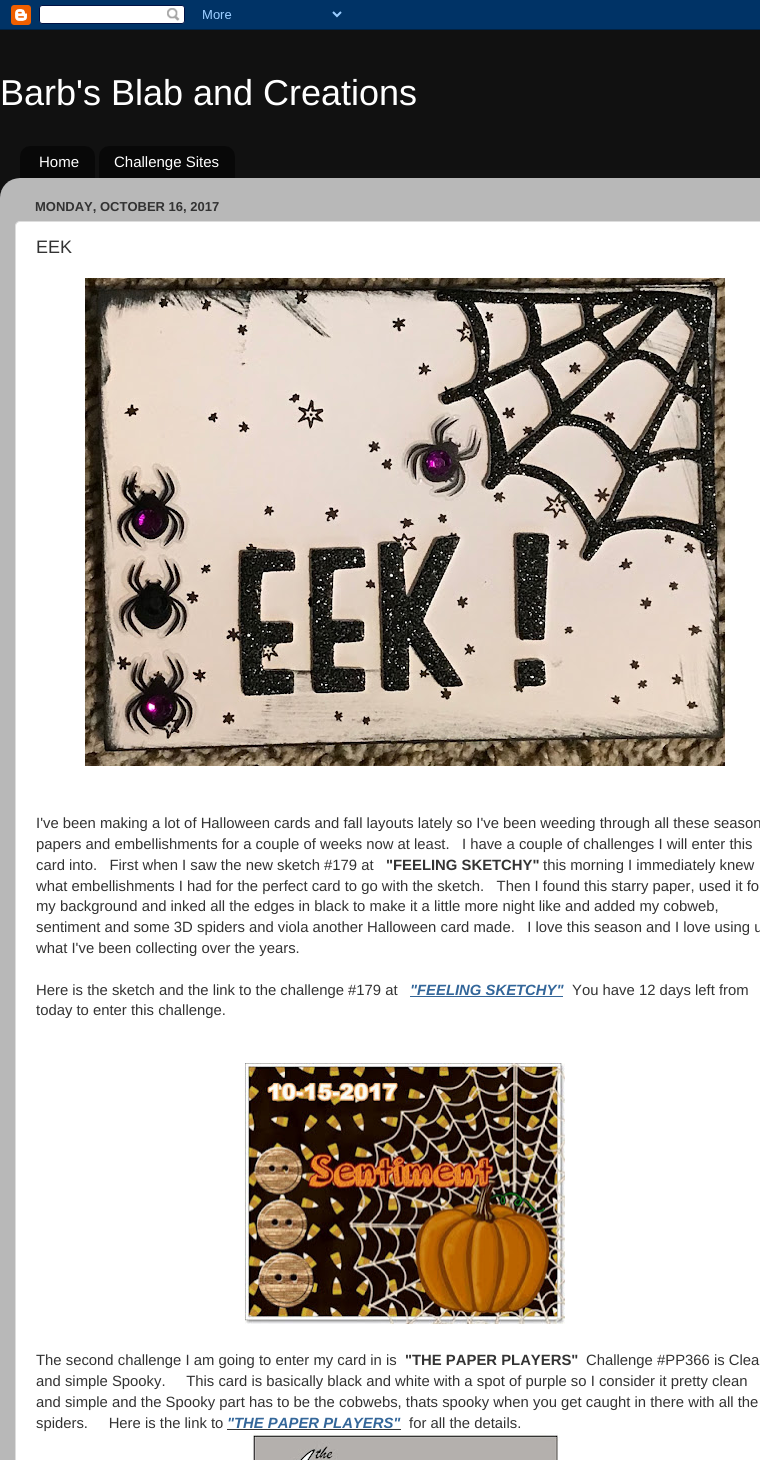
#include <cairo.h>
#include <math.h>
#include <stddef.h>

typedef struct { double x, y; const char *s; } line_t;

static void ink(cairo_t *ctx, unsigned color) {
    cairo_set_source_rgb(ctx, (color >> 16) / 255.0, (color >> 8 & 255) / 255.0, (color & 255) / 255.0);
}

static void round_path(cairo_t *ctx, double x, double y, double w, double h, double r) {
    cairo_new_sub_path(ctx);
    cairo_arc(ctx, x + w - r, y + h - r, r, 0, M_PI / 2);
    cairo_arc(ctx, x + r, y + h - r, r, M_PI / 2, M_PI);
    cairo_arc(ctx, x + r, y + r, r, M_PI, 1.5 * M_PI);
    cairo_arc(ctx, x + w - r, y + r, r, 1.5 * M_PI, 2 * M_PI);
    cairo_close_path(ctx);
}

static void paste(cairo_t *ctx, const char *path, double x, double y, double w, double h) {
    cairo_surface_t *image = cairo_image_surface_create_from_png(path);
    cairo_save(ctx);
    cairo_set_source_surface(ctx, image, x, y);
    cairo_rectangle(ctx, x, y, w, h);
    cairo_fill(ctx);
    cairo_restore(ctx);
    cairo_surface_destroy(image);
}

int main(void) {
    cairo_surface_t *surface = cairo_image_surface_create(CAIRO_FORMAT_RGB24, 760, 1460);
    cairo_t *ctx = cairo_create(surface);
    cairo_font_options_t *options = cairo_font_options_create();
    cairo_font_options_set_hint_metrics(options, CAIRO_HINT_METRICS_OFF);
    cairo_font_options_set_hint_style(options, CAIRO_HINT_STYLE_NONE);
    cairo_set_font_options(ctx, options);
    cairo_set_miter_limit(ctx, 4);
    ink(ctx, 0x111111);
    cairo_paint(ctx);
    paste(ctx, "media/1.png", 0, 0, 760, 30);
    cairo_select_font_face(ctx, "Liberation Sans", CAIRO_FONT_SLANT_NORMAL, CAIRO_FONT_WEIGHT_NORMAL);
    cairo_set_font_size(ctx, 36);
    ink(ctx, 0xFFFFFF);
    cairo_move_to(ctx, 0, 105);
    cairo_show_text(ctx, "Barb's Blab and Creations");
    paste(ctx, "media/2.png", 20, 146, 75, 32);
    cairo_set_font_size(ctx, 15);
    cairo_move_to(ctx, 39, 167);
    cairo_show_text(ctx, "Home");
    paste(ctx, "media/3.png", 99, 146, 136, 32);
    cairo_move_to(ctx, 114, 167);
    cairo_show_text(ctx, "Challenge Sites");
    paste(ctx, "media/4.png", 0, 178, 760, 1282);
    cairo_select_font_face(ctx, "Liberation Sans", CAIRO_FONT_SLANT_NORMAL, CAIRO_FONT_WEIGHT_BOLD);
    cairo_set_font_size(ctx, 13);
    ink(ctx, 0x333333);
    cairo_move_to(ctx, 35, 211);
    cairo_show_text(ctx, "MONDAY, OCTOBER 16, 2017");
    ink(ctx, 0xFFFFFF);
    round_path(ctx, 15.5, 221.5, 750, 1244, 4.5);
    cairo_fill_preserve(ctx);
    ink(ctx, 0xDDDDDD);
    cairo_set_line_width(ctx, 1);
    cairo_stroke(ctx);
    cairo_select_font_face(ctx, "Liberation Sans", CAIRO_FONT_SLANT_NORMAL, CAIRO_FONT_WEIGHT_NORMAL);
    cairo_set_font_size(ctx, 18);
    ink(ctx, 0x333333);
    cairo_move_to(ctx, 36, 253);
    cairo_show_text(ctx, "EEK");
    paste(ctx, "media/5.png", 85, 278, 640, 488);
    cairo_set_font_size(ctx, 14.85);
    {
        static const line_t items[] = {
            {36, 828, "I've been making a lot of Halloween cards and fall layouts lately so I've been weeding through all these season"},
            {36, 849, "papers and embellishments for a couple of weeks now at least.   I have a couple of challenges I will enter this"},
            {36, 870, "card into.   First when I saw the new sketch #179 at"},
        };
        for (size_t i = 0; i < sizeof items / sizeof *items; i++) {
            cairo_move_to(ctx, items[i].x, items[i].y);
            cairo_show_text(ctx, items[i].s);
        }
    }
    cairo_select_font_face(ctx, "Liberation Sans", CAIRO_FONT_SLANT_NORMAL, CAIRO_FONT_WEIGHT_BOLD);
    cairo_move_to(ctx, 386, 870);
    cairo_show_text(ctx, "\"FEELING SKETCHY\"");
    cairo_select_font_face(ctx, "Liberation Sans", CAIRO_FONT_SLANT_NORMAL, CAIRO_FONT_WEIGHT_NORMAL);
    {
        static const line_t items[] = {
            {543, 870, "this morning I immediately knew"},
            {36, 891, "what embellishments I had for the perfect card to go with the sketch.   Then I found this starry paper, used it fo"},
            {36, 911, "my background and inked all the edges in black to make it a little more night like and added my cobweb,"},
            {36, 932, "sentiment and some 3D spiders and viola another Halloween card made.   I love this season and I love using u"},
            {36, 953, "what I've been collecting over the years."},
            {36, 995, "Here is the sketch and the link to the challenge #179 at"},
        };
        for (size_t i = 0; i < sizeof items / sizeof *items; i++) {
            cairo_move_to(ctx, items[i].x, items[i].y);
            cairo_show_text(ctx, items[i].s);
        }
    }
    cairo_select_font_face(ctx, "Liberation Sans", CAIRO_FONT_SLANT_ITALIC, CAIRO_FONT_WEIGHT_BOLD);
    ink(ctx, 0x336699);
    cairo_move_to(ctx, 410, 995);
    cairo_show_text(ctx, "\"FEELING SKETCHY\"");
    cairo_rectangle(ctx, 410, 996, 153, 1);
    cairo_fill(ctx);
    cairo_select_font_face(ctx, "Liberation Sans", CAIRO_FONT_SLANT_NORMAL, CAIRO_FONT_WEIGHT_NORMAL);
    ink(ctx, 0x333333);
    cairo_move_to(ctx, 572, 995);
    cairo_show_text(ctx, "You have 12 days left from");
    cairo_move_to(ctx, 36, 1015);
    cairo_show_text(ctx, "today to enter this challenge.");
    paste(ctx, "media/6.png", 245, 1063, 320, 261);
    cairo_move_to(ctx, 36, 1365);
    cairo_show_text(ctx, "The second challenge I am going to enter my card in is");
    cairo_select_font_face(ctx, "Liberation Sans", CAIRO_FONT_SLANT_NORMAL, CAIRO_FONT_WEIGHT_BOLD);
    cairo_move_to(ctx, 405, 1365);
    cairo_show_text(ctx, "\"THE PAPER PLAYERS\"");
    cairo_select_font_face(ctx, "Liberation Sans", CAIRO_FONT_SLANT_NORMAL, CAIRO_FONT_WEIGHT_NORMAL);
    {
        static const line_t items[] = {
            {586, 1365, "Challenge #PP366 is Clea"},
            {36, 1386, "and simple Spooky.     This card is basically black and white with a spot of purple so I consider it pretty clean"},
            {36, 1407, "and simple and the Spooky part has to be the cobwebs, thats spooky when you get caught in there with all the"},
            {36, 1428, "spiders.     Here is the link to"},
        };
        for (size_t i = 0; i < sizeof items / sizeof *items; i++) {
            cairo_move_to(ctx, items[i].x, items[i].y);
            cairo_show_text(ctx, items[i].s);
        }
    }
    cairo_select_font_face(ctx, "Liberation Sans", CAIRO_FONT_SLANT_ITALIC, CAIRO_FONT_WEIGHT_BOLD);
    ink(ctx, 0x336699);
    cairo_move_to(ctx, 227, 1428);
    cairo_show_text(ctx, "\"THE PAPER PLAYERS\"");
    ink(ctx, 0x333333);
    cairo_rectangle(ctx, 227, 1429, 174, 1);
    cairo_fill(ctx);
    cairo_select_font_face(ctx, "Liberation Sans", CAIRO_FONT_SLANT_NORMAL, CAIRO_FONT_WEIGHT_NORMAL);
    cairo_move_to(ctx, 409, 1428);
    cairo_show_text(ctx, "for all the details.");
    paste(ctx, "media/7.png", 251, 1433, 309, 27);
    cairo_surface_write_to_png(surface, "image.png");
    cairo_font_options_destroy(options);
    cairo_destroy(ctx);
    cairo_surface_destroy(surface);
    return 0;
}
